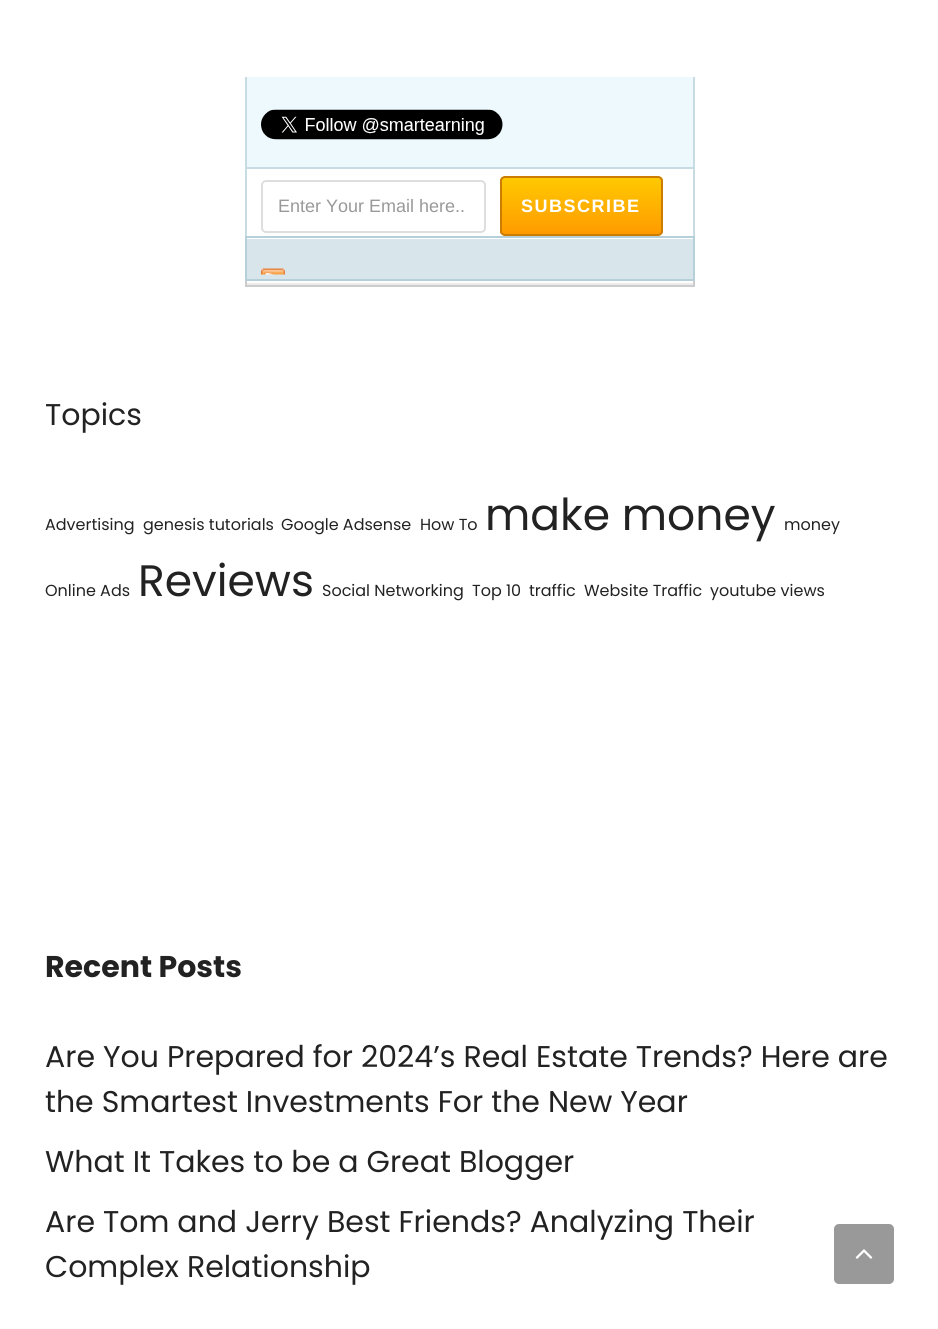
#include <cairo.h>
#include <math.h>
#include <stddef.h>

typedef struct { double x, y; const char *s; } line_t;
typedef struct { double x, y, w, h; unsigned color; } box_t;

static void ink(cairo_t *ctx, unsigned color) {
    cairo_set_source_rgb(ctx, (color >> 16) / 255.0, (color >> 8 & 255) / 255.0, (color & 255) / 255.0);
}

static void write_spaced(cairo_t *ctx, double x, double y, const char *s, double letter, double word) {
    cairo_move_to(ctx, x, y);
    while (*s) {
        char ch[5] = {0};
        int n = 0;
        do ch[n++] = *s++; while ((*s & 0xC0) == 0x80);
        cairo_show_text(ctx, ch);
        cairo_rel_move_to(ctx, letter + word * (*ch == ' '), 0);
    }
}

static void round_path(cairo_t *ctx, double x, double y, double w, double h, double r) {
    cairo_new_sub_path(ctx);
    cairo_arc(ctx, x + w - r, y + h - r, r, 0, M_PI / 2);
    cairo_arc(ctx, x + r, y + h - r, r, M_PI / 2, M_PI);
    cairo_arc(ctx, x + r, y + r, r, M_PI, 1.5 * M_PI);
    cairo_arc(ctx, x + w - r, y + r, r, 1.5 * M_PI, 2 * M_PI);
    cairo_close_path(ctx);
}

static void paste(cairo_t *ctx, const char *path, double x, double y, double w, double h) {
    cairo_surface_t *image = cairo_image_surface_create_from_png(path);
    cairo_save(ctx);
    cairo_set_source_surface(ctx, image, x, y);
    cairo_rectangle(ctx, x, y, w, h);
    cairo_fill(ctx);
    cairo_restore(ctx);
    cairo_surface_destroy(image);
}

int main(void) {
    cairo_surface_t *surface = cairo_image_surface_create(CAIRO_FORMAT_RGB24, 938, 1329);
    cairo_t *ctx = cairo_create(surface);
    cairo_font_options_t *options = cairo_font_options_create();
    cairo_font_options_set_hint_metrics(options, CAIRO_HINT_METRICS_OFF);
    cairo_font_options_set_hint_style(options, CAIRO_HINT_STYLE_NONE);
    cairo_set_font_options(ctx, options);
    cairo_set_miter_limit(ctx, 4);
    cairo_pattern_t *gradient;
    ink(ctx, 0xFFFFFF);
    cairo_paint(ctx);
    {
        static const box_t items[] = {
            {247, 77, 446, 90, 0xEEF9FD},
            {693, 77, 2, 91, 0xC7DBE2},
            {245, 167, 450, 2, 0xC7DBE2},
            {245, 77, 2, 159, 0xC7DBE2},
        };
        for (size_t i = 0; i < sizeof items / sizeof *items; i++) {
            ink(ctx, items[i].color);
            cairo_rectangle(ctx, items[i].x, items[i].y, items[i].w, items[i].h);
            cairo_fill(ctx);
        }
    }
    paste(ctx, "media/1.png", 261, 109, 242, 31);
    cairo_rectangle(ctx, 693, 168, 2, 68);
    cairo_fill(ctx);
    round_path(ctx, 262, 181, 223, 51, 4);
    ink(ctx, 0xDEDEDE);
    cairo_stroke(ctx);
    cairo_select_font_face(ctx, "Liberation Sans", CAIRO_FONT_SLANT_NORMAL, CAIRO_FONT_WEIGHT_NORMAL);
    cairo_set_font_size(ctx, 18);
    ink(ctx, 0x999999);
    cairo_move_to(ctx, 278, 212);
    cairo_show_text(ctx, "Enter Your Email here..");
    cairo_save(ctx);
    round_path(ctx, 500, 176, 163, 60, 5);
    cairo_clip(ctx);
    gradient = cairo_pattern_create_linear(501, 177, 501, 234);
    cairo_pattern_add_color_stop_rgba(gradient, 0, 1, 0.792, 0, 1);
    cairo_pattern_add_color_stop_rgba(gradient, 1, 1, 0.608, 0, 1);
    cairo_set_source(ctx, gradient);
    cairo_pattern_destroy(gradient);
    cairo_rectangle(ctx, 500, 177, 163, 57);
    cairo_fill(ctx);
    cairo_restore(ctx);
    round_path(ctx, 501, 177, 161, 58, 4);
    ink(ctx, 0xCC7C00);
    cairo_stroke(ctx);
    cairo_select_font_face(ctx, "Liberation Sans", CAIRO_FONT_SLANT_NORMAL, CAIRO_FONT_WEIGHT_BOLD);
    ink(ctx, 0xFFFFFF);
    write_spaced(ctx, 521, 212, "SUBSCRIBE", 1.5, 0);
    ink(ctx, 0xD8E6EB);
    cairo_rectangle(ctx, 247, 239, 446, 40);
    cairo_fill(ctx);
    cairo_rectangle(ctx, 246, 237, 448, 43);
    ink(ctx, 0xB6D0DA);
    cairo_stroke(ctx);
    paste(ctx, "media/2.png", 261, 268, 24, 7);
    {
        static const box_t items[] = {
            {245, 283, 450, 2, 0xEBEBEB},
            {693, 281, 2, 6, 0xCCCCCC},
            {245, 285, 450, 2, 0xCCCCCC},
            {245, 281, 2, 6, 0xCCCCCC},
        };
        for (size_t i = 0; i < sizeof items / sizeof *items; i++) {
            ink(ctx, items[i].color);
            cairo_rectangle(ctx, items[i].x, items[i].y, items[i].w, items[i].h);
            cairo_fill(ctx);
        }
    }
    cairo_select_font_face(ctx, "Poppins", CAIRO_FONT_SLANT_NORMAL, CAIRO_FONT_WEIGHT_NORMAL);
    cairo_set_font_size(ctx, 30);
    ink(ctx, 0x222222);
    cairo_move_to(ctx, 45, 425);
    cairo_show_text(ctx, "Topics");
    cairo_set_font_size(ctx, 16);
    {
        static const line_t items[] = {
            {45, 530, "Advertising"},
            {143, 530, "genesis tutorials"},
            {281, 530, "Google Adsense"},
            {420, 530, "How To"},
        };
        for (size_t i = 0; i < sizeof items / sizeof *items; i++) {
            cairo_move_to(ctx, items[i].x, items[i].y);
            cairo_show_text(ctx, items[i].s);
        }
    }
    cairo_set_font_size(ctx, 44);
    cairo_move_to(ctx, 485, 530);
    cairo_show_text(ctx, "make money");
    cairo_set_font_size(ctx, 16);
    cairo_move_to(ctx, 784, 530);
    cairo_show_text(ctx, "money");
    cairo_move_to(ctx, 45, 596);
    cairo_show_text(ctx, "Online Ads");
    cairo_set_font_size(ctx, 44);
    cairo_move_to(ctx, 138, 596);
    cairo_show_text(ctx, "Reviews");
    cairo_set_font_size(ctx, 16);
    {
        static const line_t items[] = {
            {322, 596, "Social Networking"},
            {472, 596, "Top 10"},
            {529, 596, "traffic"},
            {584, 596, "Website Traffic"},
            {710, 596, "youtube views"},
        };
        for (size_t i = 0; i < sizeof items / sizeof *items; i++) {
            cairo_move_to(ctx, items[i].x, items[i].y);
            cairo_show_text(ctx, items[i].s);
        }
    }
    cairo_select_font_face(ctx, "Poppins", CAIRO_FONT_SLANT_NORMAL, CAIRO_FONT_WEIGHT_BOLD);
    cairo_set_font_size(ctx, 30);
    cairo_move_to(ctx, 45, 977);
    cairo_show_text(ctx, "Recent Posts");
    cairo_select_font_face(ctx, "Poppins", CAIRO_FONT_SLANT_NORMAL, CAIRO_FONT_WEIGHT_NORMAL);
    {
        static const line_t items[] = {
            {45, 1067, "Are You Prepared for 2024’s Real Estate Trends? Here are"},
            {45, 1112, "the Smartest Investments For the New Year"},
            {45, 1172, "What It Takes to be a Great Blogger"},
            {45, 1232, "Are Tom and Jerry Best Friends? Analyzing Their"},
            {45, 1277, "Complex Relationship"},
        };
        for (size_t i = 0; i < sizeof items / sizeof *items; i++) {
            cairo_move_to(ctx, items[i].x, items[i].y);
            cairo_show_text(ctx, items[i].s);
        }
    }
    ink(ctx, 0x999999);
    round_path(ctx, 834, 1224, 60, 60, 5);
    cairo_fill(ctx);
    paste(ctx, "media/3.png", 855, 1249, 18, 10);
    cairo_surface_write_to_png(surface, "image.png");
    cairo_font_options_destroy(options);
    cairo_destroy(ctx);
    cairo_surface_destroy(surface);
    return 0;
}
